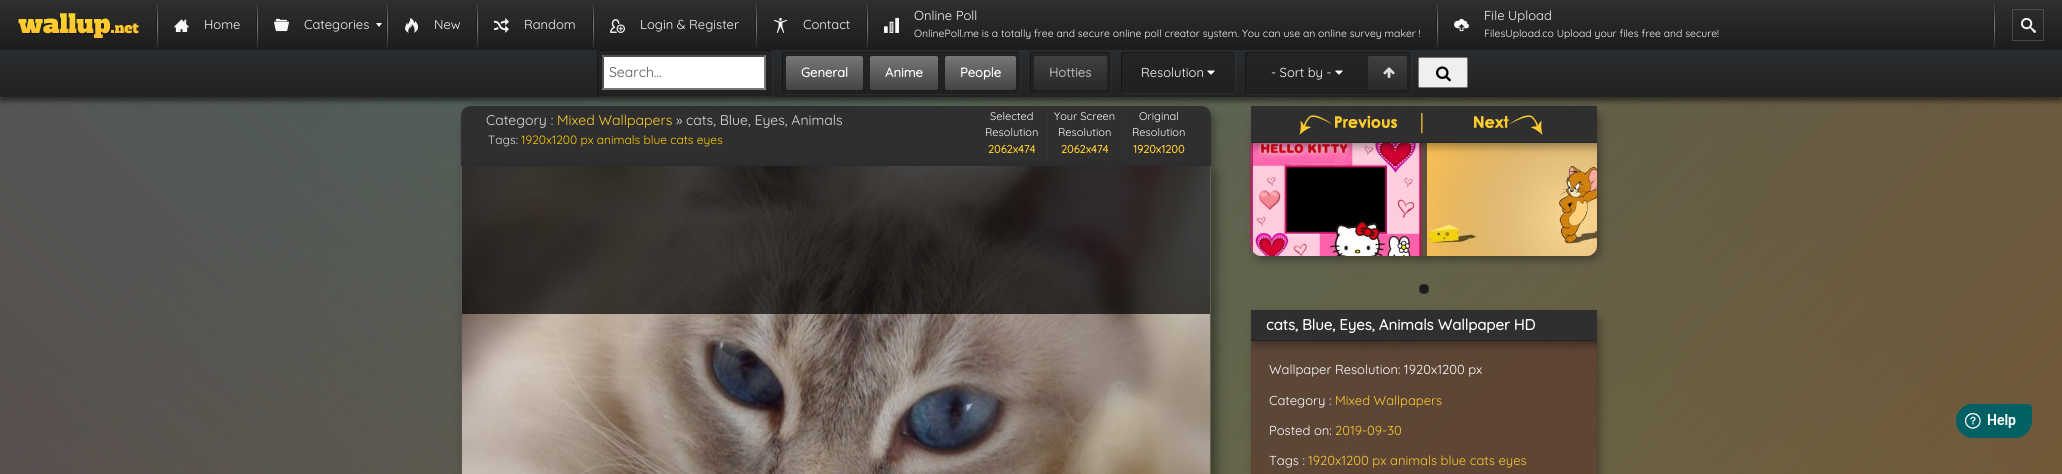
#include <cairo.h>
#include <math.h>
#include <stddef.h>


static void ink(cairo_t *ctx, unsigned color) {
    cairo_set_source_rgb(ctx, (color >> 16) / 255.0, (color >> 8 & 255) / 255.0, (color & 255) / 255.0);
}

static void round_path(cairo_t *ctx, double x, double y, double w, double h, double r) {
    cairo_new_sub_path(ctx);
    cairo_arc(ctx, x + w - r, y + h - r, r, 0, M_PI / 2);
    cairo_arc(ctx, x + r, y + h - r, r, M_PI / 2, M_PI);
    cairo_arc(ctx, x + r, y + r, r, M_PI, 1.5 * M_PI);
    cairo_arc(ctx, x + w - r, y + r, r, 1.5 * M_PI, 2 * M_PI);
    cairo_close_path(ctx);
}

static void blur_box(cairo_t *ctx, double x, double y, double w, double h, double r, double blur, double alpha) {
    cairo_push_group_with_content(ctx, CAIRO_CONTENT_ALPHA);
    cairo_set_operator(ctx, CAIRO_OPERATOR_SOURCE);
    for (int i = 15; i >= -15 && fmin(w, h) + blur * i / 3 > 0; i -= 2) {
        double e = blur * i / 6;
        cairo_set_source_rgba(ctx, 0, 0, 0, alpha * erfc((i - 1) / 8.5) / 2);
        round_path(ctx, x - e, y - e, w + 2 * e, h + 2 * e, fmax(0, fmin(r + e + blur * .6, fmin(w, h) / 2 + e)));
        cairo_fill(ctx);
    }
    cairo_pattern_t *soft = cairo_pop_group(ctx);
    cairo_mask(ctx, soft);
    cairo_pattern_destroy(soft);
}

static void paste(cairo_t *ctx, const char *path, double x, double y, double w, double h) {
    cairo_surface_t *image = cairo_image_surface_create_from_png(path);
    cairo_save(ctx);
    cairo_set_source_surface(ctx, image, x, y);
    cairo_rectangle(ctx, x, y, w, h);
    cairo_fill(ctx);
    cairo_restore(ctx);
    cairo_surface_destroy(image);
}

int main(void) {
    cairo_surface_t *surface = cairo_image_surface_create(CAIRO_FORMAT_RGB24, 2062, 474);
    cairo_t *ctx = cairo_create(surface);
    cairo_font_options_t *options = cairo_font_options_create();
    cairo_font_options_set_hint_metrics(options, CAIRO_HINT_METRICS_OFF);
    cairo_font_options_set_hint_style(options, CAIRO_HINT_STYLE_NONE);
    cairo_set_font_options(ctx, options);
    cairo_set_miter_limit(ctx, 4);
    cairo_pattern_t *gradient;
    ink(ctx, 0xFFFFFF);
    cairo_paint(ctx);
    gradient = cairo_pattern_create_linear(2053, -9, 9, 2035);
    cairo_pattern_add_color_stop_rgba(gradient, 0.1, 0.498, 0.329, 0.161, 1);
    cairo_pattern_add_color_stop_rgba(gradient, 0.8, 0.565, 0.565, 0.224, 1);
    cairo_set_source(ctx, gradient);
    cairo_pattern_destroy(gradient);
    cairo_rectangle(ctx, 0, 97, 2062, 377);
    cairo_fill(ctx);
    gradient = cairo_pattern_create_linear(9, -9, 2053, 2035);
    cairo_pattern_add_color_stop_rgba(gradient, 0.1, 0.29, 0.392, 0.384, 1);
    cairo_pattern_add_color_stop_rgba(gradient, 0.8, 0.29, 0.392, 0.384, 0);
    cairo_set_source(ctx, gradient);
    cairo_pattern_destroy(gradient);
    cairo_rectangle(ctx, 0, 97, 2062, 377);
    cairo_fill(ctx);
    gradient = cairo_pattern_create_linear(9, 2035, 2053, -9);
    cairo_pattern_add_color_stop_rgba(gradient, 0, 0.412, 0.216, 0.208, 1);
    cairo_pattern_add_color_stop_rgba(gradient, 0.7, 0.412, 0.216, 0.208, 0);
    cairo_set_source(ctx, gradient);
    cairo_pattern_destroy(gradient);
    cairo_rectangle(ctx, 0, 97, 1180, 377);
    cairo_fill(ctx);
    ink(ctx, 0x000000);
    blur_box(ctx, 0, 55, 2062, 46, 0, 2.5, 0.5);
    cairo_rectangle(ctx, -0.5, 49.5, 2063, 47);
    ink(ctx, 0x222222);
    cairo_set_line_width(ctx, 1);
    cairo_stroke(ctx);
    gradient = cairo_pattern_create_linear(1031, 0, 1031, 50);
    cairo_pattern_add_color_stop_rgba(gradient, 0, 0.184, 0.184, 0.184, 1);
    cairo_pattern_add_color_stop_rgba(gradient, 1, 0.11, 0.11, 0.11, 1);
    cairo_set_source(ctx, gradient);
    cairo_pattern_destroy(gradient);
    cairo_rectangle(ctx, 0, 0, 2062, 50);
    cairo_fill(ctx);
    paste(ctx, "media/1.png", 18, 13, 121, 25);
    paste(ctx, "media/2.png", 156, 3, 2, 45);
    paste(ctx, "media/3.png", 174, 19, 15, 13);
    cairo_select_font_face(ctx, "Quicksand Light", CAIRO_FONT_SLANT_NORMAL, CAIRO_FONT_WEIGHT_NORMAL);
    cairo_set_font_size(ctx, 13);
    ink(ctx, 0xF8F8F8);
    cairo_move_to(ctx, 204, 29);
    cairo_show_text(ctx, "Home");
    paste(ctx, "media/2.png", 256, 3, 2, 45);
    paste(ctx, "media/4.png", 274, 18, 15, 14);
    cairo_move_to(ctx, 304, 29);
    cairo_show_text(ctx, "Categories");
    cairo_new_path(ctx);
    cairo_move_to(ctx, 376, 23);
    cairo_line_to(ctx, 382, 23);
    cairo_line_to(ctx, 379, 27);
    cairo_close_path(ctx);
    cairo_fill(ctx);
    paste(ctx, "media/2.png", 386, 3, 2, 45);
    paste(ctx, "media/5.png", 405, 18, 13, 15);
    cairo_move_to(ctx, 434, 29);
    cairo_show_text(ctx, "New");
    paste(ctx, "media/2.png", 476, 3, 2, 45);
    paste(ctx, "media/6.png", 494, 18, 15, 15);
    cairo_move_to(ctx, 524, 29);
    cairo_show_text(ctx, "Random");
    paste(ctx, "media/2.png", 592, 3, 2, 45);
    paste(ctx, "media/7.png", 610, 19, 15, 14);
    cairo_move_to(ctx, 640, 29);
    cairo_show_text(ctx, "Login & Register");
    paste(ctx, "media/2.png", 755, 3, 2, 45);
    paste(ctx, "media/8.png", 773, 17, 15, 16);
    cairo_move_to(ctx, 803, 29);
    cairo_show_text(ctx, "Contact");
    paste(ctx, "media/2.png", 866, 3, 2, 45);
    paste(ctx, "media/9.png", 884, 17, 15, 16);
    cairo_move_to(ctx, 914, 20);
    cairo_show_text(ctx, "Online Poll");
    cairo_set_font_size(ctx, 10.4);
    cairo_move_to(ctx, 914, 37);
    cairo_show_text(ctx, "OnlinePoll.me is a totally free and secure online poll creator system. You can use an online survey maker !");
    paste(ctx, "media/2.png", 1436, 3, 2, 45);
    paste(ctx, "media/10.png", 1454, 18, 15, 14);
    cairo_set_font_size(ctx, 13);
    cairo_move_to(ctx, 1484, 20);
    cairo_show_text(ctx, "File Upload");
    cairo_set_font_size(ctx, 10.4);
    cairo_move_to(ctx, 1484, 37);
    cairo_show_text(ctx, "FilesUpload.co Upload your files free and secure!");
    paste(ctx, "media/2.png", 1993, 3, 2, 45);
    cairo_rectangle(ctx, 2012.5, 9.5, 31, 31);
    cairo_set_source_rgba(ctx, 0.502, 0.502, 0.502, 0.4);
    cairo_stroke(ctx);
    paste(ctx, "media/11.png", 2021, 17, 15, 16);
    gradient = cairo_pattern_create_linear(1031, 50, 1031, 96);
    cairo_pattern_add_color_stop_rgba(gradient, 0, 0.161, 0.173, 0.184, 1);
    cairo_pattern_add_color_stop_rgba(gradient, 1, 0.133, 0.133, 0.133, 1);
    cairo_set_source(ctx, gradient);
    cairo_pattern_destroy(gradient);
    cairo_rectangle(ctx, 0, 50, 2062, 46);
    cairo_fill(ctx);
    cairo_set_source_rgba(ctx, 0.498, 0.498, 0.498, 0.1);
    cairo_new_path(ctx);
    cairo_move_to(ctx, 598, 96);
    cairo_curve_to(ctx, 599, 96, 600, 97, 601, 97);
    cairo_line_to(ctx, 770, 97);
    cairo_curve_to(ctx, 772, 97, 773, 96, 773, 94);
    cairo_line_to(ctx, 773, 54);
    cairo_curve_to(ctx, 773, 53, 772, 52, 772, 51);
    cairo_line_to(ctx, 772, 53);
    cairo_line_to(ctx, 772, 93);
    cairo_curve_to(ctx, 772, 95, 771, 96, 769, 96);
    cairo_line_to(ctx, 600, 96);
    cairo_close_path(ctx);
    cairo_fill(ctx);
    cairo_set_source_rgba(ctx, 0.118, 0.118, 0.118, 0.5);
    round_path(ctx, 597, 50, 175, 46, 3);
    cairo_fill(ctx);
    cairo_set_source_rgba(ctx, 0, 0, 0, 0.4);
    cairo_new_path(ctx);
    cairo_move_to(ctx, 601, 51);
    cairo_line_to(ctx, 771, 51);
    cairo_curve_to(ctx, 771, 50, 770, 50, 769, 50);
    cairo_line_to(ctx, 600, 50);
    cairo_curve_to(ctx, 598, 50, 597, 51, 597, 53);
    cairo_line_to(ctx, 597, 93);
    cairo_curve_to(ctx, 597, 94, 597, 95, 598, 95);
    cairo_line_to(ctx, 598, 61);
    cairo_curve_to(ctx, 598, 58, 596, 51, 601, 51);
    cairo_close_path(ctx);
    cairo_fill(ctx);
    ink(ctx, 0xFFFFFF);
    cairo_rectangle(ctx, 602, 55, 164, 35);
    cairo_fill(ctx);
    ink(ctx, 0x4F4F4F);
    cairo_new_path(ctx);
    cairo_move_to(ctx, 602, 55);
    cairo_line_to(ctx, 766, 55);
    cairo_line_to(ctx, 764, 57);
    cairo_line_to(ctx, 604, 57);
    cairo_close_path(ctx);
    cairo_fill(ctx);
    ink(ctx, 0x767676);
    cairo_new_path(ctx);
    cairo_move_to(ctx, 766, 55);
    cairo_line_to(ctx, 766, 90);
    cairo_line_to(ctx, 764, 88);
    cairo_line_to(ctx, 764, 57);
    cairo_close_path(ctx);
    cairo_fill(ctx);
    cairo_new_path(ctx);
    cairo_move_to(ctx, 766, 90);
    cairo_line_to(ctx, 602, 90);
    cairo_line_to(ctx, 604, 88);
    cairo_line_to(ctx, 764, 88);
    cairo_close_path(ctx);
    cairo_fill(ctx);
    ink(ctx, 0x4F4F4F);
    cairo_new_path(ctx);
    cairo_move_to(ctx, 602, 90);
    cairo_line_to(ctx, 602, 55);
    cairo_line_to(ctx, 604, 57);
    cairo_line_to(ctx, 604, 88);
    cairo_close_path(ctx);
    cairo_fill(ctx);
    cairo_set_font_size(ctx, 14);
    ink(ctx, 0x575757);
    cairo_move_to(ctx, 609, 77);
    cairo_show_text(ctx, "Search...");
    cairo_set_source_rgba(ctx, 0.498, 0.498, 0.498, 0.1);
    cairo_new_path(ctx);
    cairo_move_to(ctx, 783, 94);
    cairo_curve_to(ctx, 784, 94, 785, 95, 786, 95);
    cairo_line_to(ctx, 1018, 95);
    cairo_curve_to(ctx, 1020, 95, 1021, 94, 1021, 92);
    cairo_line_to(ctx, 1021, 56);
    cairo_curve_to(ctx, 1021, 55, 1020, 54, 1020, 53);
    cairo_line_to(ctx, 1020, 55);
    cairo_line_to(ctx, 1020, 91);
    cairo_curve_to(ctx, 1020, 93, 1019, 94, 1017, 94);
    cairo_line_to(ctx, 785, 94);
    cairo_close_path(ctx);
    cairo_fill(ctx);
    cairo_set_source_rgba(ctx, 0.118, 0.118, 0.118, 0.5);
    round_path(ctx, 782, 52, 238, 42, 3);
    cairo_fill(ctx);
    cairo_set_source_rgba(ctx, 0, 0, 0, 0.4);
    cairo_new_path(ctx);
    cairo_move_to(ctx, 786, 53);
    cairo_line_to(ctx, 1019, 53);
    cairo_curve_to(ctx, 1019, 52, 1018, 52, 1017, 52);
    cairo_line_to(ctx, 785, 52);
    cairo_curve_to(ctx, 783, 52, 782, 53, 782, 55);
    cairo_line_to(ctx, 782, 91);
    cairo_curve_to(ctx, 782, 92, 782, 93, 783, 93);
    cairo_line_to(ctx, 783, 62);
    cairo_curve_to(ctx, 783, 59, 782, 53, 786, 53);
    cairo_close_path(ctx);
    cairo_fill(ctx);
    gradient = cairo_pattern_create_linear(825, 56, 825, 90);
    cairo_pattern_add_color_stop_rgba(gradient, 0, 0.467, 0.467, 0.467, 1);
    cairo_pattern_add_color_stop_rgba(gradient, 1, 0.267, 0.267, 0.267, 1);
    cairo_set_source(ctx, gradient);
    cairo_pattern_destroy(gradient);
    round_path(ctx, 786, 56, 77, 34, 2);
    cairo_fill(ctx);
    cairo_select_font_face(ctx, "Quicksand", CAIRO_FONT_SLANT_NORMAL, CAIRO_FONT_WEIGHT_BOLD);
    cairo_set_font_size(ctx, 13);
    ink(ctx, 0xFFFFFF);
    cairo_move_to(ctx, 801, 77);
    cairo_show_text(ctx, "General");
    gradient = cairo_pattern_create_linear(904, 56, 904, 90);
    cairo_pattern_add_color_stop_rgba(gradient, 0, 0.467, 0.467, 0.467, 1);
    cairo_pattern_add_color_stop_rgba(gradient, 1, 0.267, 0.267, 0.267, 1);
    cairo_set_source(ctx, gradient);
    cairo_pattern_destroy(gradient);
    round_path(ctx, 870, 56, 68, 34, 2);
    cairo_fill(ctx);
    ink(ctx, 0xFFFFFF);
    cairo_move_to(ctx, 885, 77);
    cairo_show_text(ctx, "Anime");
    gradient = cairo_pattern_create_linear(981, 56, 981, 90);
    cairo_pattern_add_color_stop_rgba(gradient, 0, 0.467, 0.467, 0.467, 1);
    cairo_pattern_add_color_stop_rgba(gradient, 1, 0.267, 0.267, 0.267, 1);
    cairo_set_source(ctx, gradient);
    cairo_pattern_destroy(gradient);
    round_path(ctx, 945, 56, 71, 34, 2);
    cairo_fill(ctx);
    ink(ctx, 0xFFFFFF);
    cairo_move_to(ctx, 960, 77);
    cairo_show_text(ctx, "People");
    cairo_set_source_rgba(ctx, 0.498, 0.498, 0.498, 0.1);
    cairo_new_path(ctx);
    cairo_move_to(ctx, 1031, 94);
    cairo_curve_to(ctx, 1032, 94, 1033, 95, 1034, 95);
    cairo_line_to(ctx, 1109, 95);
    cairo_curve_to(ctx, 1111, 95, 1112, 94, 1112, 92);
    cairo_line_to(ctx, 1112, 56);
    cairo_curve_to(ctx, 1112, 55, 1111, 54, 1111, 53);
    cairo_line_to(ctx, 1111, 55);
    cairo_line_to(ctx, 1111, 91);
    cairo_curve_to(ctx, 1111, 93, 1110, 94, 1108, 94);
    cairo_line_to(ctx, 1033, 94);
    cairo_close_path(ctx);
    cairo_fill(ctx);
    cairo_set_source_rgba(ctx, 0.118, 0.118, 0.118, 0.5);
    round_path(ctx, 1030, 52, 81, 42, 3);
    cairo_fill(ctx);
    cairo_set_source_rgba(ctx, 0, 0, 0, 0.4);
    cairo_new_path(ctx);
    cairo_move_to(ctx, 1034, 53);
    cairo_line_to(ctx, 1110, 53);
    cairo_curve_to(ctx, 1110, 52, 1109, 52, 1108, 52);
    cairo_line_to(ctx, 1033, 52);
    cairo_curve_to(ctx, 1031, 52, 1030, 53, 1030, 55);
    cairo_line_to(ctx, 1030, 91);
    cairo_curve_to(ctx, 1030, 92, 1030, 93, 1031, 93);
    cairo_line_to(ctx, 1031, 62);
    cairo_curve_to(ctx, 1031, 59, 1030, 53, 1034, 53);
    cairo_close_path(ctx);
    cairo_fill(ctx);
    gradient = cairo_pattern_create_linear(1071, 56, 1071, 90);
    cairo_pattern_add_color_stop_rgba(gradient, 0, 0.251, 0.251, 0.251, 1);
    cairo_pattern_add_color_stop_rgba(gradient, 1, 0.161, 0.161, 0.161, 1);
    cairo_set_source(ctx, gradient);
    cairo_pattern_destroy(gradient);
    round_path(ctx, 1034, 56, 73, 34, 2);
    cairo_fill(ctx);
    ink(ctx, 0xAAAAAA);
    cairo_move_to(ctx, 1049, 77);
    cairo_show_text(ctx, "Hotties");
    cairo_set_source_rgba(ctx, 0.498, 0.498, 0.498, 0.1);
    cairo_new_path(ctx);
    cairo_move_to(ctx, 1122, 93);
    cairo_curve_to(ctx, 1123, 93, 1124, 94, 1125, 94);
    cairo_line_to(ctx, 1233, 94);
    cairo_curve_to(ctx, 1235, 94, 1236, 93, 1236, 91);
    cairo_line_to(ctx, 1236, 56);
    cairo_curve_to(ctx, 1236, 55, 1235, 54, 1235, 53);
    cairo_line_to(ctx, 1235, 55);
    cairo_line_to(ctx, 1235, 90);
    cairo_curve_to(ctx, 1235, 92, 1234, 93, 1232, 93);
    cairo_line_to(ctx, 1124, 93);
    cairo_close_path(ctx);
    cairo_fill(ctx);
    cairo_set_source_rgba(ctx, 0.118, 0.118, 0.118, 0.5);
    round_path(ctx, 1121, 52, 114, 41, 3);
    cairo_fill(ctx);
    cairo_set_source_rgba(ctx, 0, 0, 0, 0.4);
    cairo_new_path(ctx);
    cairo_move_to(ctx, 1125, 53);
    cairo_line_to(ctx, 1234, 53);
    cairo_curve_to(ctx, 1234, 52, 1233, 52, 1232, 52);
    cairo_line_to(ctx, 1124, 52);
    cairo_curve_to(ctx, 1122, 52, 1121, 53, 1121, 55);
    cairo_line_to(ctx, 1121, 90);
    cairo_curve_to(ctx, 1121, 91, 1121, 92, 1122, 92);
    cairo_line_to(ctx, 1122, 62);
    cairo_curve_to(ctx, 1122, 59, 1121, 53, 1125, 53);
    cairo_close_path(ctx);
    cairo_fill(ctx);
    cairo_select_font_face(ctx, "Quicksand Light", CAIRO_FONT_SLANT_NORMAL, CAIRO_FONT_WEIGHT_NORMAL);
    ink(ctx, 0xFFFFFF);
    cairo_move_to(ctx, 1141, 77);
    cairo_show_text(ctx, "Resolution");
    paste(ctx, "media/12.png", 1207, 70, 8, 5);
    cairo_set_source_rgba(ctx, 0.498, 0.498, 0.498, 0.1);
    cairo_new_path(ctx);
    cairo_move_to(ctx, 1246, 94);
    cairo_curve_to(ctx, 1247, 94, 1248, 95, 1249, 95);
    cairo_line_to(ctx, 1409, 95);
    cairo_curve_to(ctx, 1411, 95, 1412, 94, 1412, 92);
    cairo_line_to(ctx, 1412, 56);
    cairo_curve_to(ctx, 1412, 55, 1411, 54, 1411, 53);
    cairo_line_to(ctx, 1411, 55);
    cairo_line_to(ctx, 1411, 91);
    cairo_curve_to(ctx, 1411, 93, 1410, 94, 1408, 94);
    cairo_line_to(ctx, 1248, 94);
    cairo_close_path(ctx);
    cairo_fill(ctx);
    cairo_set_source_rgba(ctx, 0.118, 0.118, 0.118, 0.5);
    round_path(ctx, 1245, 52, 166, 42, 3);
    cairo_fill(ctx);
    cairo_set_source_rgba(ctx, 0, 0, 0, 0.4);
    cairo_new_path(ctx);
    cairo_move_to(ctx, 1249, 53);
    cairo_line_to(ctx, 1410, 53);
    cairo_curve_to(ctx, 1410, 52, 1409, 52, 1408, 52);
    cairo_line_to(ctx, 1248, 52);
    cairo_curve_to(ctx, 1246, 52, 1245, 53, 1245, 55);
    cairo_line_to(ctx, 1245, 91);
    cairo_curve_to(ctx, 1245, 92, 1245, 93, 1246, 93);
    cairo_line_to(ctx, 1246, 62);
    cairo_curve_to(ctx, 1246, 59, 1245, 53, 1249, 53);
    cairo_close_path(ctx);
    cairo_fill(ctx);
    ink(ctx, 0xFFFFFF);
    cairo_move_to(ctx, 1271, 77);
    cairo_show_text(ctx, "- Sort by -");
    paste(ctx, "media/12.png", 1335, 70, 8, 5);
    gradient = cairo_pattern_create_linear(1388, 56, 1388, 90);
    cairo_pattern_add_color_stop_rgba(gradient, 0, 0.251, 0.251, 0.251, 1);
    cairo_pattern_add_color_stop_rgba(gradient, 1, 0.161, 0.161, 0.161, 1);
    cairo_set_source(ctx, gradient);
    cairo_pattern_destroy(gradient);
    round_path(ctx, 1368, 56, 39, 34, 2);
    cairo_fill(ctx);
    paste(ctx, "media/13.png", 1383, 67, 12, 11);
    ink(ctx, 0xEFEFEF);
    round_path(ctx, 1418.5, 57.5, 49, 30, 1.5);
    cairo_fill_preserve(ctx);
    ink(ctx, 0x767676);
    cairo_stroke(ctx);
    paste(ctx, "media/14.png", 1436, 66, 15, 16);
    paste(ctx, "media/16.png", 462, 177, 748, 297);
    ink(ctx, 0x000000);
    blur_box(ctx, 464, 110, 750, 60, 10, 4.5, 0.34);
    ink(ctx, 0x2F2F2F);
    cairo_new_path(ctx);
    cairo_move_to(ctx, 471, 106);
    cairo_line_to(ctx, 1201, 106);
    cairo_curve_to(ctx, 1206.5, 106, 1211, 110.5, 1211, 116);
    cairo_line_to(ctx, 1211, 166);
    cairo_line_to(ctx, 461, 166);
    cairo_line_to(ctx, 461, 116);
    cairo_curve_to(ctx, 461, 110.5, 465.5, 106, 471, 106);
    cairo_close_path(ctx);
    cairo_fill(ctx);
    cairo_set_font_size(ctx, 14);
    ink(ctx, 0xDDDDDD);
    cairo_move_to(ctx, 486, 125);
    cairo_show_text(ctx, "Category :");
    ink(ctx, 0xFCCC2E);
    cairo_move_to(ctx, 557, 125);
    cairo_show_text(ctx, "Mixed Wallpapers");
    ink(ctx, 0xDDDDDD);
    cairo_move_to(ctx, 676, 125);
    cairo_show_text(ctx, "» cats, Blue, Eyes, Animals");
    cairo_set_font_size(ctx, 12);
    cairo_move_to(ctx, 488, 144);
    cairo_show_text(ctx, "Tags:");
    ink(ctx, 0xFFCC00);
    cairo_move_to(ctx, 521, 144);
    cairo_show_text(ctx, "1920x1200 px animals blue cats eyes");
    cairo_set_font_size(ctx, 11);
    ink(ctx, 0xFFFFFF);
    cairo_move_to(ctx, 990, 120);
    cairo_show_text(ctx, "Selected");
    cairo_move_to(ctx, 985, 136);
    cairo_show_text(ctx, "Resolution");
    cairo_select_font_face(ctx, "Quicksand", CAIRO_FONT_SLANT_NORMAL, CAIRO_FONT_WEIGHT_BOLD);
    ink(ctx, 0xFCCC2E);
    cairo_move_to(ctx, 988, 153);
    cairo_show_text(ctx, "2062x474");
    ink(ctx, 0x333333);
    cairo_rectangle(ctx, 1121, 106, 1, 54);
    cairo_fill(ctx);
    cairo_rectangle(ctx, 1047, 106, 1, 54);
    cairo_fill(ctx);
    cairo_select_font_face(ctx, "Quicksand Light", CAIRO_FONT_SLANT_NORMAL, CAIRO_FONT_WEIGHT_NORMAL);
    ink(ctx, 0xFFFFFF);
    cairo_move_to(ctx, 1054, 120);
    cairo_show_text(ctx, "Your Screen");
    cairo_move_to(ctx, 1058, 136);
    cairo_show_text(ctx, "Resolution");
    cairo_select_font_face(ctx, "Quicksand", CAIRO_FONT_SLANT_NORMAL, CAIRO_FONT_WEIGHT_BOLD);
    ink(ctx, 0xFCCC2E);
    cairo_move_to(ctx, 1061, 153);
    cairo_show_text(ctx, "2062x474");
    cairo_select_font_face(ctx, "Quicksand Light", CAIRO_FONT_SLANT_NORMAL, CAIRO_FONT_WEIGHT_NORMAL);
    ink(ctx, 0xFFFFFF);
    cairo_move_to(ctx, 1139, 120);
    cairo_show_text(ctx, "Original");
    cairo_move_to(ctx, 1132, 136);
    cairo_show_text(ctx, "Resolution");
    cairo_select_font_face(ctx, "Quicksand", CAIRO_FONT_SLANT_NORMAL, CAIRO_FONT_WEIGHT_BOLD);
    ink(ctx, 0xFCCC2E);
    cairo_move_to(ctx, 1133, 153);
    cairo_show_text(ctx, "1920x1200");
    cairo_save(ctx);
    cairo_set_fill_rule(ctx, CAIRO_FILL_RULE_EVEN_ODD);
    cairo_new_path(ctx);
    cairo_move_to(ctx, 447, 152);
    cairo_line_to(ctx, 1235, 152);
    cairo_line_to(ctx, 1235, 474);
    cairo_line_to(ctx, 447, 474);
    cairo_close_path(ctx);
    cairo_move_to(ctx, 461, 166);
    cairo_line_to(ctx, 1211, 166);
    cairo_line_to(ctx, 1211, 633);
    cairo_line_to(ctx, 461, 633);
    cairo_close_path(ctx);
    cairo_clip(ctx);
    ink(ctx, 0x000000);
    blur_box(ctx, 466, 171, 750, 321, 0, 6, 0.44);
    cairo_restore(ctx);
    paste(ctx, "media/15.png", 462, 166, 748, 11);
    cairo_set_source_rgba(ctx, 0, 0, 0, 0.7);
    cairo_rectangle(ctx, 462, 166, 748, 148);
    cairo_fill(ctx);
    cairo_save(ctx);
    cairo_set_fill_rule(ctx, CAIRO_FILL_RULE_EVEN_ODD);
    cairo_new_path(ctx);
    cairo_move_to(ctx, 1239, 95);
    cairo_line_to(ctx, 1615, 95);
    cairo_line_to(ctx, 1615, 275);
    cairo_line_to(ctx, 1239, 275);
    cairo_close_path(ctx);
    cairo_move_to(ctx, 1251, 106);
    cairo_line_to(ctx, 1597, 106);
    cairo_line_to(ctx, 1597, 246);
    cairo_curve_to(ctx, 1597, 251.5, 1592.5, 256, 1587, 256);
    cairo_line_to(ctx, 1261, 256);
    cairo_curve_to(ctx, 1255.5, 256, 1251, 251.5, 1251, 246);
    cairo_close_path(ctx);
    cairo_clip(ctx);
    ink(ctx, 0x000000);
    blur_box(ctx, 1254, 110, 346, 150, 10, 4.5, 0.34);
    cairo_restore(ctx);
    cairo_set_source_rgba(ctx, 0.314, 0.102, 0.102, 0.23);
    cairo_new_path(ctx);
    cairo_move_to(ctx, 1251, 106);
    cairo_line_to(ctx, 1597, 106);
    cairo_line_to(ctx, 1597, 246);
    cairo_curve_to(ctx, 1597, 251.5, 1592.5, 256, 1587, 256);
    cairo_line_to(ctx, 1261, 256);
    cairo_curve_to(ctx, 1255.5, 256, 1251, 251.5, 1251, 246);
    cairo_close_path(ctx);
    cairo_fill(ctx);
    paste(ctx, "media/18.png", 1251, 143, 170, 113);
    paste(ctx, "media/19.png", 1427, 143, 170, 113);
    cairo_save(ctx);
    cairo_new_path(ctx);
    cairo_move_to(ctx, 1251, 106);
    cairo_line_to(ctx, 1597, 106);
    cairo_line_to(ctx, 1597, 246);
    cairo_curve_to(ctx, 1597, 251.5, 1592.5, 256, 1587, 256);
    cairo_line_to(ctx, 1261, 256);
    cairo_curve_to(ctx, 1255.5, 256, 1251, 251.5, 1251, 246);
    cairo_close_path(ctx);
    cairo_clip(ctx);
    ink(ctx, 0x000000);
    blur_box(ctx, 1254, 110, 346, 37, 0, 4.5, 0.34);
    cairo_restore(ctx);
    ink(ctx, 0x2F2F2F);
    cairo_rectangle(ctx, 1251, 106, 346, 36);
    cairo_fill(ctx);
    ink(ctx, 0x262626);
    cairo_rectangle(ctx, 1251, 142, 346, 1);
    cairo_fill(ctx);
    paste(ctx, "media/17.png", 1299, 113, 244, 22);
    ink(ctx, 0x1B1B1B);
    round_path(ctx, 1419.5, 284.5, 9, 9, 3.5);
    cairo_fill_preserve(ctx);
    ink(ctx, 0x2F2F2F);
    cairo_stroke(ctx);
    cairo_save(ctx);
    cairo_set_fill_rule(ctx, CAIRO_FILL_RULE_EVEN_ODD);
    cairo_new_path(ctx);
    cairo_move_to(ctx, 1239, 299);
    cairo_line_to(ctx, 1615, 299);
    cairo_line_to(ctx, 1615, 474);
    cairo_line_to(ctx, 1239, 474);
    cairo_close_path(ctx);
    cairo_move_to(ctx, 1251, 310);
    cairo_line_to(ctx, 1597, 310);
    cairo_line_to(ctx, 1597, 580);
    cairo_curve_to(ctx, 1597, 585.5, 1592.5, 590, 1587, 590);
    cairo_line_to(ctx, 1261, 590);
    cairo_curve_to(ctx, 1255.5, 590, 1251, 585.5, 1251, 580);
    cairo_close_path(ctx);
    cairo_clip(ctx);
    ink(ctx, 0x000000);
    blur_box(ctx, 1254, 314, 346, 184, 10, 4.5, 0.34);
    cairo_restore(ctx);
    cairo_set_source_rgba(ctx, 0.314, 0.102, 0.102, 0.23);
    cairo_rectangle(ctx, 1251, 341, 346, 133);
    cairo_fill(ctx);
    cairo_rectangle(ctx, 1251, 341, 346, 133);
    cairo_fill(ctx);
    cairo_set_source_rgba(ctx, 0, 0, 0, 0.05);
    cairo_rectangle(ctx, 1251, 341, 346, 1);
    cairo_fill(ctx);
    cairo_save(ctx);
    cairo_new_path(ctx);
    cairo_move_to(ctx, 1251, 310);
    cairo_line_to(ctx, 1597, 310);
    cairo_line_to(ctx, 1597, 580);
    cairo_curve_to(ctx, 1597, 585.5, 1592.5, 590, 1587, 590);
    cairo_line_to(ctx, 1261, 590);
    cairo_curve_to(ctx, 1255.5, 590, 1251, 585.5, 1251, 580);
    cairo_close_path(ctx);
    cairo_clip(ctx);
    ink(ctx, 0x000000);
    blur_box(ctx, 1254, 314, 346, 31, 0, 4.5, 0.34);
    cairo_restore(ctx);
    ink(ctx, 0x2F2F2F);
    cairo_rectangle(ctx, 1251, 310, 346, 30);
    cairo_fill(ctx);
    ink(ctx, 0x262626);
    cairo_rectangle(ctx, 1251, 340, 346, 1);
    cairo_fill(ctx);
    cairo_set_font_size(ctx, 15);
    ink(ctx, 0xFFFFFF);
    cairo_move_to(ctx, 1266, 330);
    cairo_show_text(ctx, "cats, Blue, Eyes, Animals Wallpaper HD");
    cairo_select_font_face(ctx, "Quicksand Light", CAIRO_FONT_SLANT_NORMAL, CAIRO_FONT_WEIGHT_NORMAL);
    cairo_set_font_size(ctx, 13);
    cairo_move_to(ctx, 1269, 374);
    cairo_show_text(ctx, "Wallpaper Resolution: 1920x1200 px");
    cairo_move_to(ctx, 1269, 405);
    cairo_show_text(ctx, "Category :");
    ink(ctx, 0xFCCC2E);
    cairo_move_to(ctx, 1335, 405);
    cairo_show_text(ctx, "Mixed Wallpapers");
    ink(ctx, 0xFFFFFF);
    cairo_move_to(ctx, 1269, 435);
    cairo_show_text(ctx, "Posted on:");
    ink(ctx, 0xFCCC2E);
    cairo_move_to(ctx, 1335, 435);
    cairo_show_text(ctx, "2019-09-30");
    ink(ctx, 0xFFFFFF);
    cairo_move_to(ctx, 1269, 465);
    cairo_show_text(ctx, "Tags :");
    ink(ctx, 0xFCCC2E);
    cairo_move_to(ctx, 1308, 465);
    cairo_show_text(ctx, "1920x1200 px animals blue cats eyes");
    paste(ctx, "media/20.png", 1956, 404, 76, 34);
    cairo_surface_write_to_png(surface, "image.png");
    cairo_font_options_destroy(options);
    cairo_destroy(ctx);
    cairo_surface_destroy(surface);
    return 0;
}
